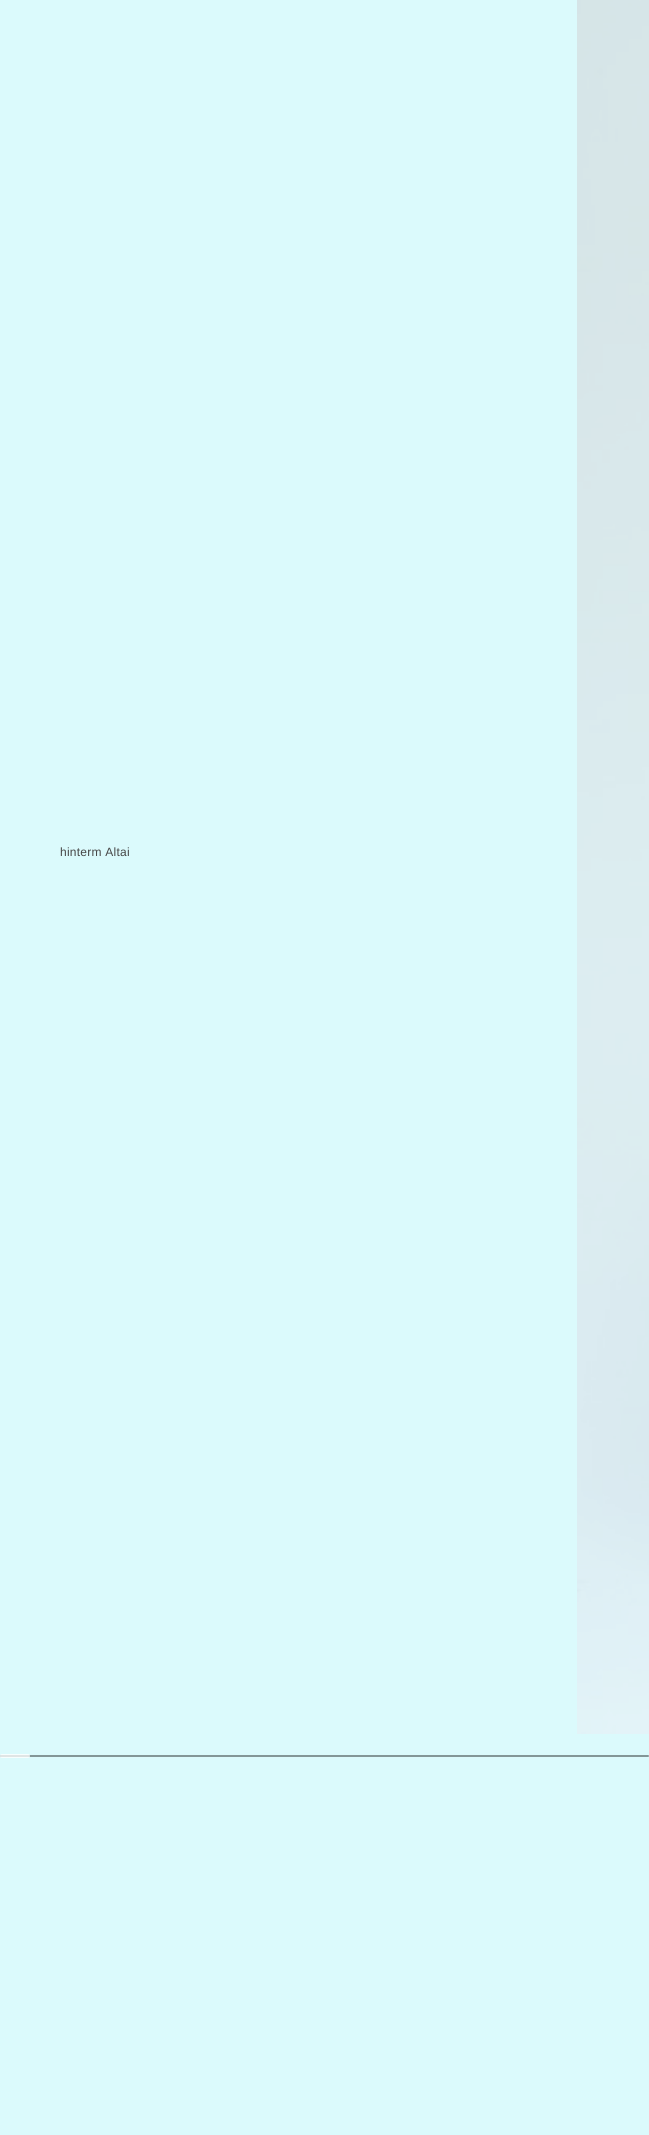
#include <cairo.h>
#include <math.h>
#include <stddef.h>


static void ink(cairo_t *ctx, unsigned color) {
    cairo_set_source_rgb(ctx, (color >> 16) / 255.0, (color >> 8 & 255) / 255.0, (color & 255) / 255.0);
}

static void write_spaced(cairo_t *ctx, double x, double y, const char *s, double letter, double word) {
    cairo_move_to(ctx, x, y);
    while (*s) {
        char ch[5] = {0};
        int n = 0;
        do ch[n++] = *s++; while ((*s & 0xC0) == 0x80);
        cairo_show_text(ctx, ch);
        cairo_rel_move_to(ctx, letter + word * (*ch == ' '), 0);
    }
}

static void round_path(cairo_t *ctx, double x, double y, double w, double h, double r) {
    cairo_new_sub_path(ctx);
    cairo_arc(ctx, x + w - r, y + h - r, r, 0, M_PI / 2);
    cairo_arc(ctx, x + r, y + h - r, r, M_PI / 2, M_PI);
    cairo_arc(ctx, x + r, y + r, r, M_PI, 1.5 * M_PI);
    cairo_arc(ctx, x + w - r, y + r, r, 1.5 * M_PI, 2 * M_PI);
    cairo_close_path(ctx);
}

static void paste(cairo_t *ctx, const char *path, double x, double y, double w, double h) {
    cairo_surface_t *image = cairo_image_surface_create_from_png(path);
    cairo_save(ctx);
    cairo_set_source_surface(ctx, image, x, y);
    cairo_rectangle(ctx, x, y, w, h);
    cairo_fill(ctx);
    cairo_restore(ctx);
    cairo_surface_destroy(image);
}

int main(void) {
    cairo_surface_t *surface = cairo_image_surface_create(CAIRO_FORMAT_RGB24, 649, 2135);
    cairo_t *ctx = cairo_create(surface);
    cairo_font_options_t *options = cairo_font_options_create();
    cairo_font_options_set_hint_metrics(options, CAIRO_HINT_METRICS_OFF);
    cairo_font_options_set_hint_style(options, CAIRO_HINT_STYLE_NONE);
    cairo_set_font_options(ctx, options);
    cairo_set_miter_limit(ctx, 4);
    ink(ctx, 0xDBFAFC);
    cairo_paint(ctx);
    cairo_select_font_face(ctx, "Liberation Sans", CAIRO_FONT_SLANT_NORMAL, CAIRO_FONT_WEIGHT_NORMAL);
    cairo_set_font_size(ctx, 12);
    ink(ctx, 0x474747);
    write_spaced(ctx, 60, 856, "hinterm Altai", 0.25, 0);
    paste(ctx, "media/1.png", 577, 0, 72, 1734);
    ink(ctx, 0x839697);
    round_path(ctx, 0, 1755, 649, 2, 1);
    cairo_fill(ctx);
    cairo_set_source_rgba(ctx, 1, 1, 1, 0.75);
    round_path(ctx, 0, 1754, 30, 4, 2);
    cairo_fill(ctx);
    cairo_surface_write_to_png(surface, "image.png");
    cairo_font_options_destroy(options);
    cairo_destroy(ctx);
    cairo_surface_destroy(surface);
    return 0;
}
